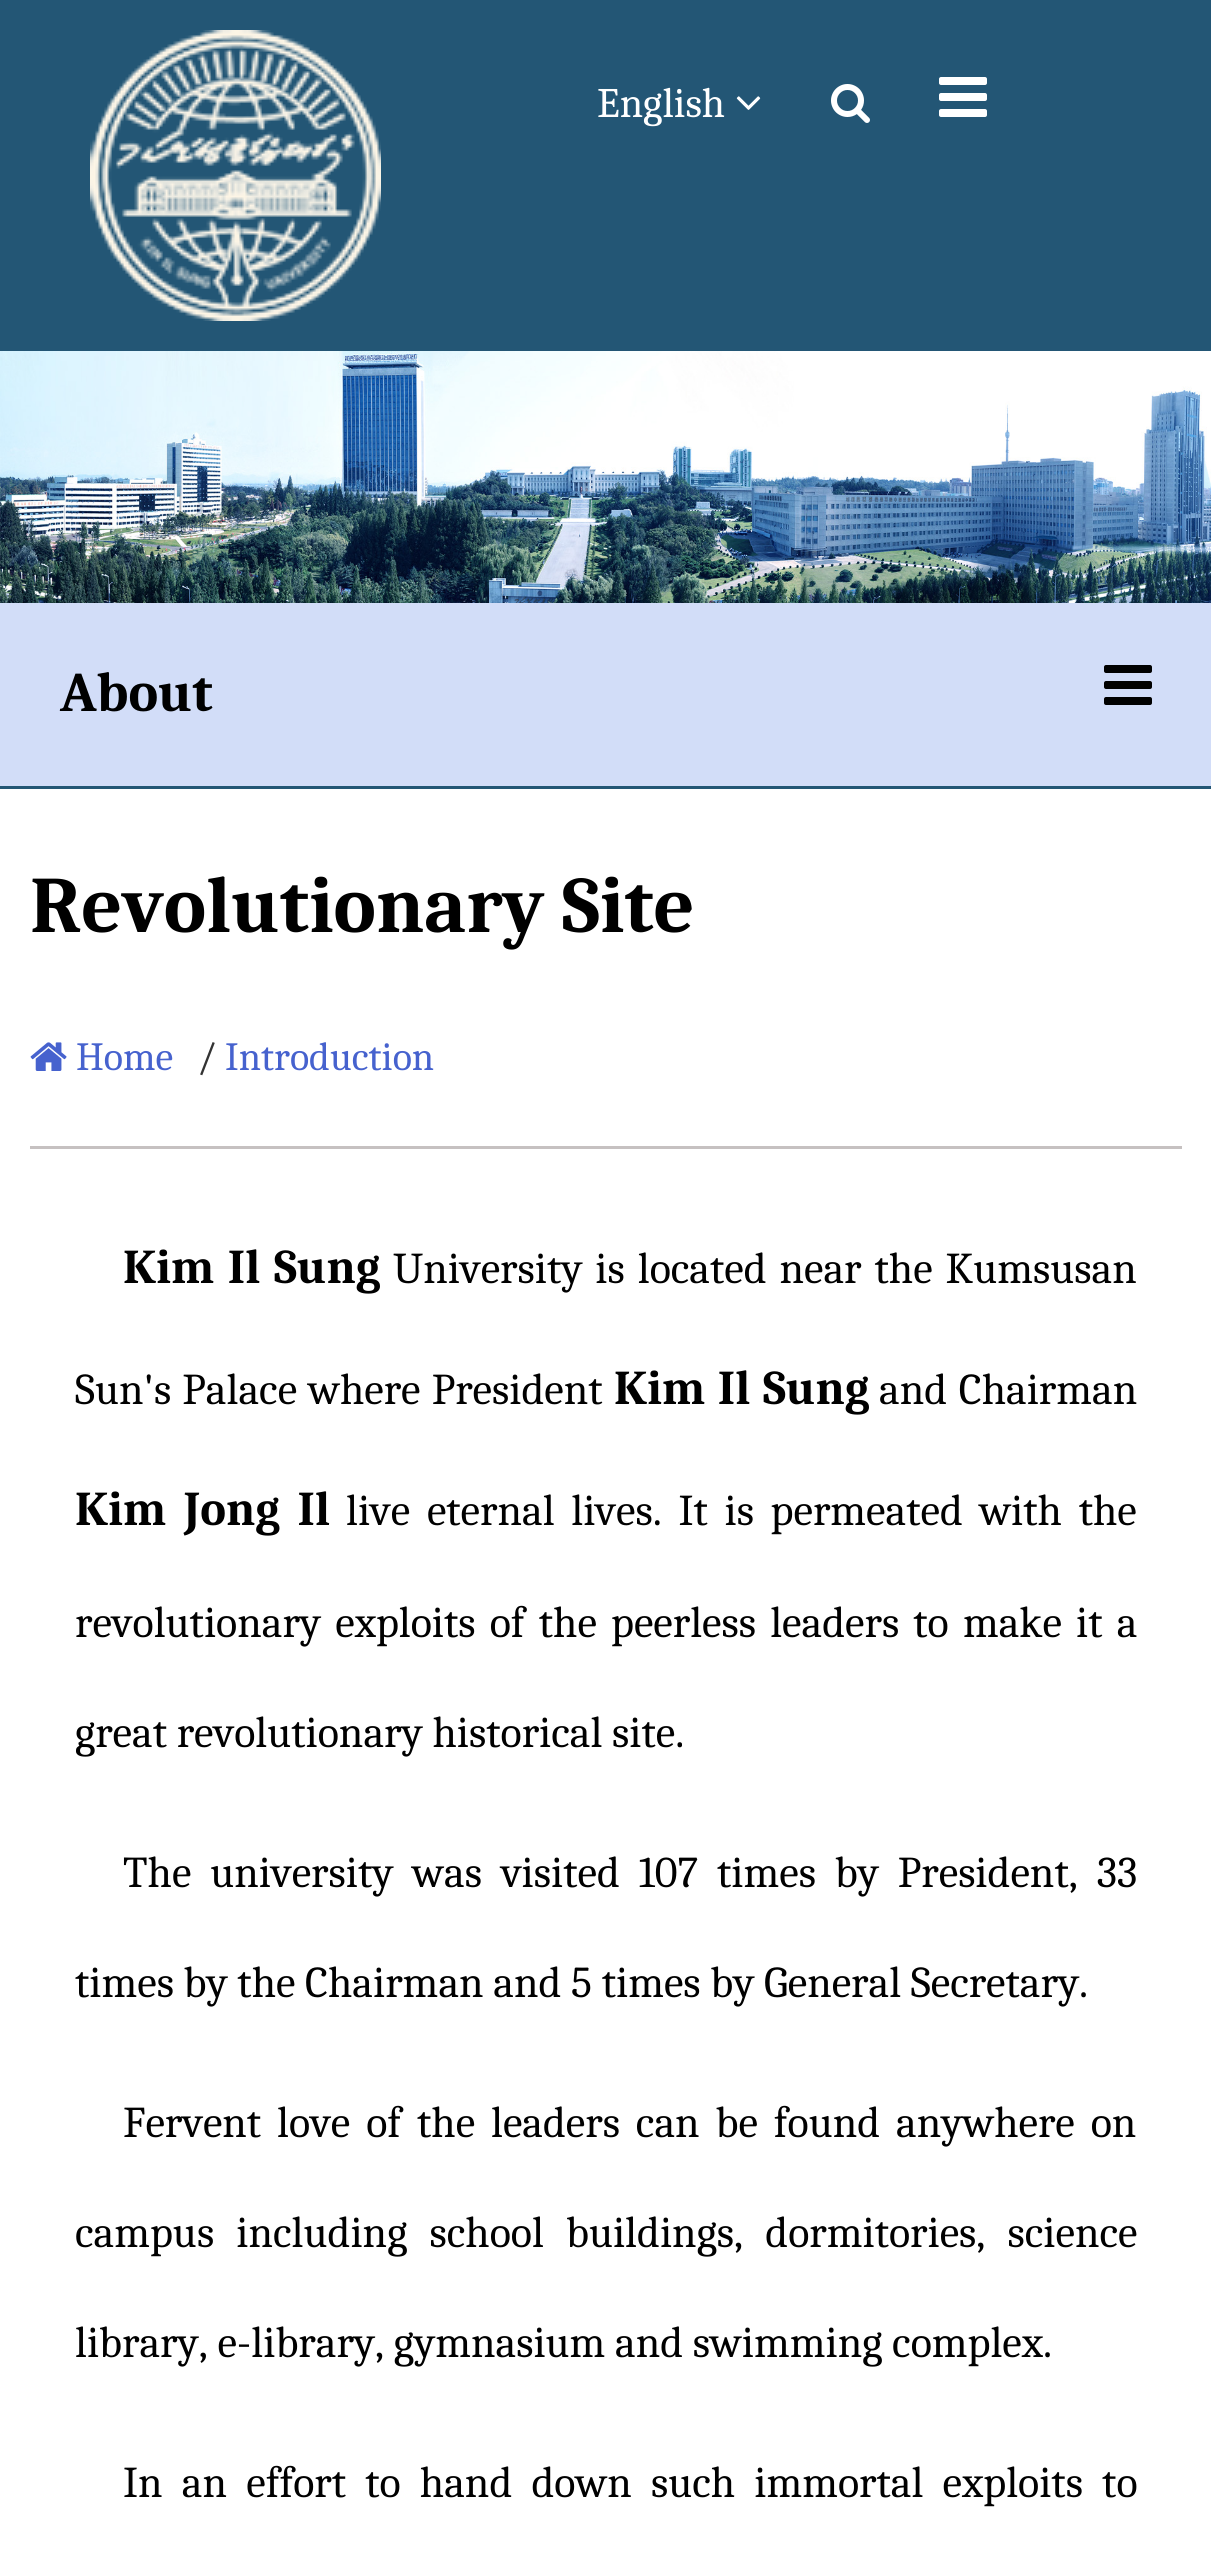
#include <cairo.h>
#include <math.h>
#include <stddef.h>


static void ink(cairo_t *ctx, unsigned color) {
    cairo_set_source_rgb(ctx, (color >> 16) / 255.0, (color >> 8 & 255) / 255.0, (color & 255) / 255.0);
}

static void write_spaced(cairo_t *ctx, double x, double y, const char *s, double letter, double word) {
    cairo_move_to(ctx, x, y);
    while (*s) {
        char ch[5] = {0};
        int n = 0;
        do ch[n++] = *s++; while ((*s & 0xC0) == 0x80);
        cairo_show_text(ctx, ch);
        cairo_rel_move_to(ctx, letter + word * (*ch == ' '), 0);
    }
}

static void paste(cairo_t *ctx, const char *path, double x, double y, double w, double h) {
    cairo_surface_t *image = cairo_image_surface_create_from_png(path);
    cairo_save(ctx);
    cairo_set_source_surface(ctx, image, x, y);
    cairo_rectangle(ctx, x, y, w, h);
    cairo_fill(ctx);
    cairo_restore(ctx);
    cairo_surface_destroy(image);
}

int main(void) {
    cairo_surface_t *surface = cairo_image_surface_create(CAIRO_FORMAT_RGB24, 1211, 2550);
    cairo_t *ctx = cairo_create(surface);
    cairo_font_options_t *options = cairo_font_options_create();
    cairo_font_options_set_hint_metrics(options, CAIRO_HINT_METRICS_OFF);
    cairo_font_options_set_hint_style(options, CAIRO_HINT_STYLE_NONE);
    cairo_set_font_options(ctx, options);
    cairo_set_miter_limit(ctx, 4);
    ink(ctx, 0xFFFFFF);
    cairo_paint(ctx);
    ink(ctx, 0x235675);
    cairo_rectangle(ctx, 0, 0, 1211, 351);
    cairo_fill(ctx);
    paste(ctx, "media/1.png", 90, 30, 291, 291);
    cairo_select_font_face(ctx, "Caladea", CAIRO_FONT_SLANT_NORMAL, CAIRO_FONT_WEIGHT_NORMAL);
    cairo_set_font_size(ctx, 42);
    ink(ctx, 0xFFFFFF);
    cairo_move_to(ctx, 597, 117);
    cairo_show_text(ctx, "English");
    paste(ctx, "media/2.png", 736, 96, 25, 14);
    paste(ctx, "media/3.png", 831, 84, 39, 39);
    paste(ctx, "media/4.png", 939, 77, 48, 40);
    paste(ctx, "media/5.png", 0, 351, 1211, 252);
    ink(ctx, 0xD2DDF8);
    cairo_rectangle(ctx, 0, 603, 1211, 183);
    cairo_fill(ctx);
    ink(ctx, 0x235675);
    cairo_rectangle(ctx, 0, 786, 1211, 3);
    cairo_fill(ctx);
    cairo_select_font_face(ctx, "Caladea", CAIRO_FONT_SLANT_NORMAL, CAIRO_FONT_WEIGHT_BOLD);
    cairo_set_font_size(ctx, 56);
    ink(ctx, 0x000000);
    cairo_move_to(ctx, 60, 711);
    cairo_show_text(ctx, "About");
    paste(ctx, "media/6.png", 1104, 665, 48, 40);
    ink(ctx, 0xC6C1C1);
    cairo_rectangle(ctx, 30, 1146, 1152, 3);
    cairo_fill(ctx);
    cairo_set_font_size(ctx, 80);
    ink(ctx, 0x000000);
    cairo_move_to(ctx, 30, 932);
    cairo_show_text(ctx, "Revolutionary Site");
    paste(ctx, "media/7.png", 30, 1042, 37, 29);
    cairo_select_font_face(ctx, "Caladea", CAIRO_FONT_SLANT_NORMAL, CAIRO_FONT_WEIGHT_NORMAL);
    cairo_set_font_size(ctx, 40);
    ink(ctx, 0x4662CE);
    cairo_move_to(ctx, 76, 1070);
    cairo_show_text(ctx, "Home");
    ink(ctx, 0x333333);
    cairo_move_to(ctx, 197, 1070);
    cairo_show_text(ctx, "/");
    ink(ctx, 0x4662CE);
    cairo_move_to(ctx, 225, 1070);
    cairo_show_text(ctx, "Introduction");
    cairo_select_font_face(ctx, "Caladea", CAIRO_FONT_SLANT_NORMAL, CAIRO_FONT_WEIGHT_BOLD);
    cairo_set_font_size(ctx, 48.5);
    ink(ctx, 0x000000);
    write_spaced(ctx, 123, 1283, "Kim Il Sung", 0, 3);
    cairo_select_font_face(ctx, "Caladea", CAIRO_FONT_SLANT_NORMAL, CAIRO_FONT_WEIGHT_NORMAL);
    cairo_set_font_size(ctx, 44);
    write_spaced(ctx, 393, 1283, "University is located near the Kumsusan", 0, 3.25);
    write_spaced(ctx, 75, 1404, "Sun's Palace where President", 0, 1.5);
    cairo_select_font_face(ctx, "Caladea", CAIRO_FONT_SLANT_NORMAL, CAIRO_FONT_WEIGHT_BOLD);
    cairo_set_font_size(ctx, 48.5);
    write_spaced(ctx, 614, 1404, "Kim Il Sung", 0, 2);
    cairo_select_font_face(ctx, "Caladea", CAIRO_FONT_SLANT_NORMAL, CAIRO_FONT_WEIGHT_NORMAL);
    cairo_set_font_size(ctx, 44);
    write_spaced(ctx, 879, 1404, "and Chairman", 0, 2);
    cairo_select_font_face(ctx, "Caladea", CAIRO_FONT_SLANT_NORMAL, CAIRO_FONT_WEIGHT_BOLD);
    cairo_set_font_size(ctx, 48.5);
    write_spaced(ctx, 75, 1525, "Kim Jong Il", 0, 7);
    cairo_select_font_face(ctx, "Caladea", CAIRO_FONT_SLANT_NORMAL, CAIRO_FONT_WEIGHT_NORMAL);
    cairo_set_font_size(ctx, 44);
    write_spaced(ctx, 346, 1525, "live eternal lives. It is permeated with the", 0, 7);
    write_spaced(ctx, 75, 1637, "revolutionary exploits of the peerless leaders to make it a", 0, 4.5);
    cairo_move_to(ctx, 75, 1747);
    cairo_show_text(ctx, "great revolutionary historical site.");
    write_spaced(ctx, 123, 1887, "The university was visited 107 times by President, 33", 0, 9.25);
    cairo_move_to(ctx, 75, 1997);
    cairo_show_text(ctx, "times by the Chairman and 5 times by General Secretary.");
    write_spaced(ctx, 123, 2137, "Fervent love of the leaders can be found anywhere on", 0, 6.25);
    write_spaced(ctx, 75, 2247, "campus including school buildings, dormitories, science", 0, 12.5);
    cairo_move_to(ctx, 75, 2357);
    cairo_show_text(ctx, "library, e-library, gymnasium and swimming complex.");
    write_spaced(ctx, 123, 2497, "In an effort to hand down such immortal exploits to", 0, 9.5);
    cairo_surface_write_to_png(surface, "image.png");
    cairo_font_options_destroy(options);
    cairo_destroy(ctx);
    cairo_surface_destroy(surface);
    return 0;
}
